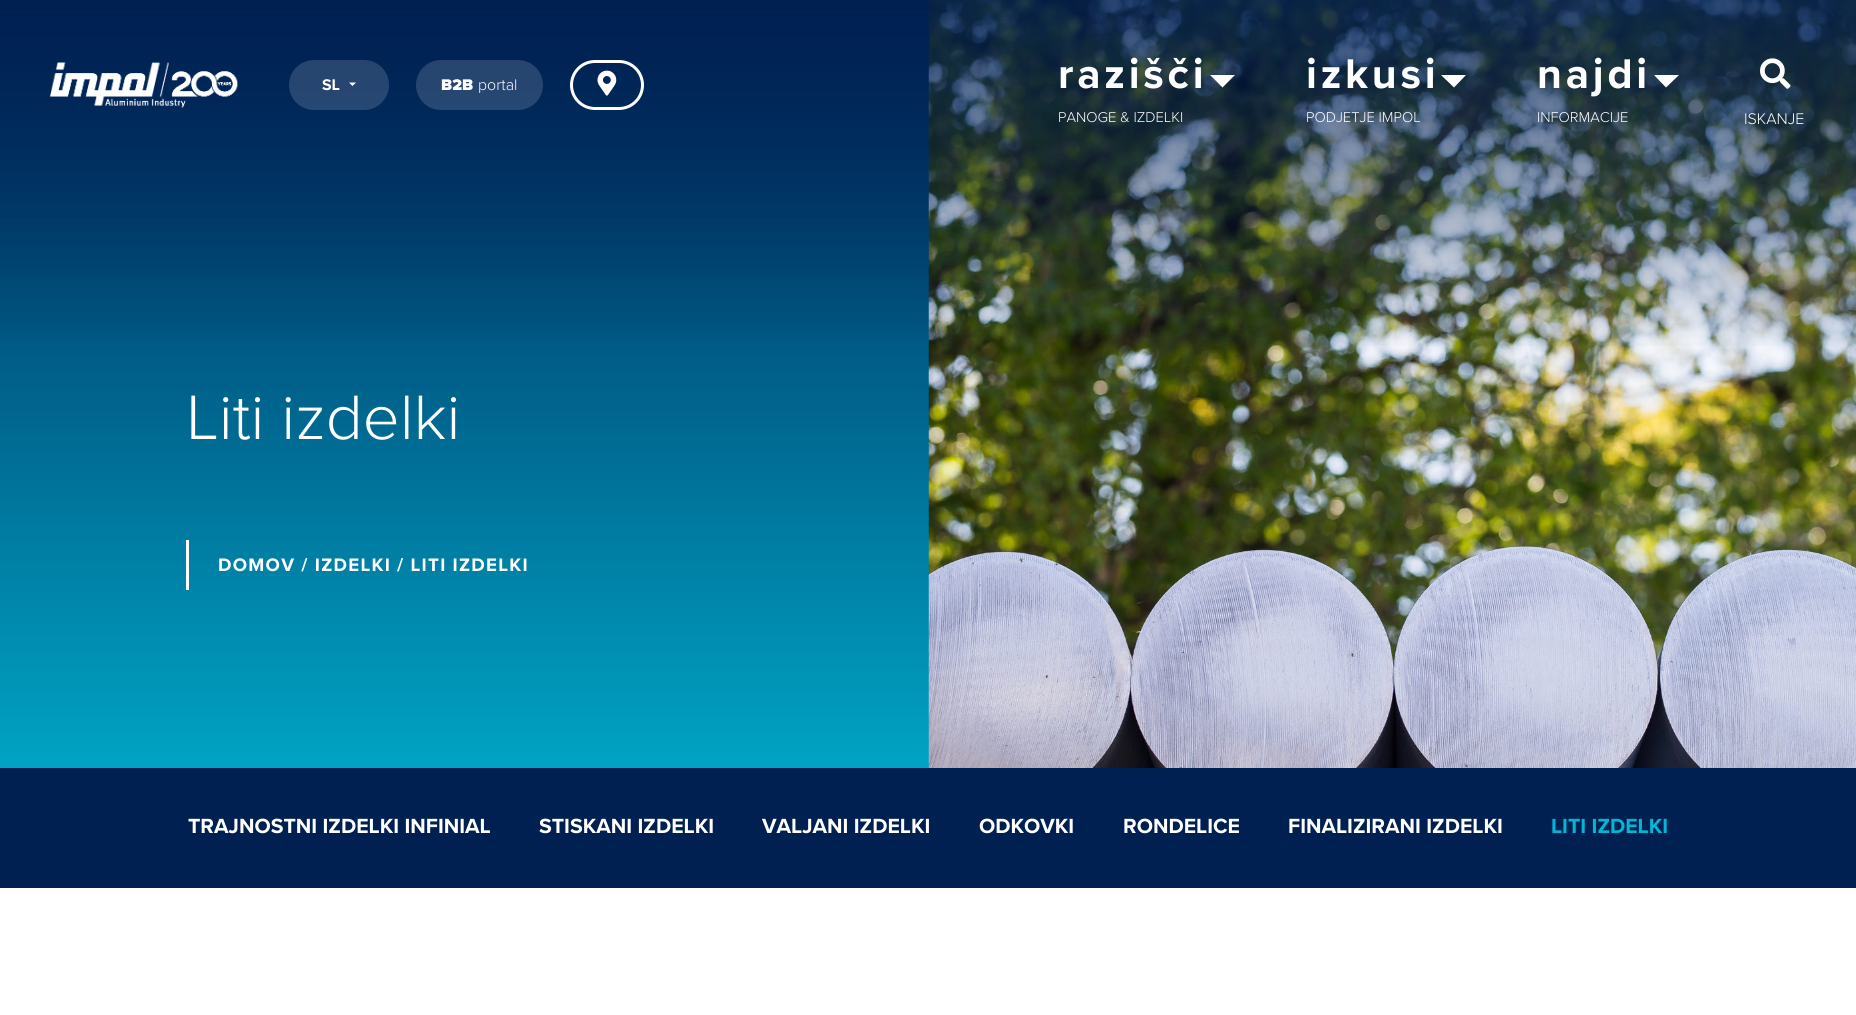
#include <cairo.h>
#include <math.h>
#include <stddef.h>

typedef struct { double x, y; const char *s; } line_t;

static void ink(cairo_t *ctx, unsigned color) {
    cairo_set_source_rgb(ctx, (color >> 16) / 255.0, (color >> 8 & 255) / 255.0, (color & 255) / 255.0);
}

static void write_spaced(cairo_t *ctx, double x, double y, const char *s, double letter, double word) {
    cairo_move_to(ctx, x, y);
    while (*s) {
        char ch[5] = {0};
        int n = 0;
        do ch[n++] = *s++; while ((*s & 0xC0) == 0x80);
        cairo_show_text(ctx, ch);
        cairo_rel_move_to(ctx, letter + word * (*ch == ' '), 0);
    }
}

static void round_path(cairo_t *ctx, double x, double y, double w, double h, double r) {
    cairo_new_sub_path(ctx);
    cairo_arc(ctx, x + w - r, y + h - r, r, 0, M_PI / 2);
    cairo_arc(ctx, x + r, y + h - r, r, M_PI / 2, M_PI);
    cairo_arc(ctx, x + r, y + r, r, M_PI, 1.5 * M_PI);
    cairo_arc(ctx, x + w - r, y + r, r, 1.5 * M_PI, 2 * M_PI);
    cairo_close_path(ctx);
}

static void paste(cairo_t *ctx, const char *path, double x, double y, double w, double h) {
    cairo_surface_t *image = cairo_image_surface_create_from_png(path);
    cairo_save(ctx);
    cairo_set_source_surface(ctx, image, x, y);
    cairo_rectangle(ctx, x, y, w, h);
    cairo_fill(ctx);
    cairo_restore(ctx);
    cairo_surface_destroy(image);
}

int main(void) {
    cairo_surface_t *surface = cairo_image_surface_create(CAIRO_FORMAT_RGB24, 1856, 1015);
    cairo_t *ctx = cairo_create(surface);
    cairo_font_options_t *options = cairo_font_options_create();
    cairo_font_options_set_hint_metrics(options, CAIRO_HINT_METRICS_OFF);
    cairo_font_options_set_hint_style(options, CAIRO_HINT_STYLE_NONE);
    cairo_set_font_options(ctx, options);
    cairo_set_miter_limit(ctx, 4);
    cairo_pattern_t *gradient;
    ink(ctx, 0xFFFFFF);
    cairo_paint(ctx);
    gradient = cairo_pattern_create_linear(928, 0, 928, 888);
    cairo_pattern_add_color_stop_rgba(gradient, 0, 0, 0.125, 0.322, 1);
    cairo_pattern_add_color_stop_rgba(gradient, 1, 0, 0.722, 0.839, 1);
    cairo_set_source(ctx, gradient);
    cairo_pattern_destroy(gradient);
    cairo_rectangle(ctx, 0, 0, 929, 768);
    cairo_fill(ctx);
    paste(ctx, "media/4.png", 928, 0, 928, 768);
    gradient = cairo_pattern_create_linear(928, 0, 928, 888);
    cairo_pattern_add_color_stop_rgba(gradient, 0, 0, 0.125, 0.322, 0.8);
    cairo_pattern_add_color_stop_rgba(gradient, 0.4, 0, 0.125, 0.322, 0);
    cairo_set_source(ctx, gradient);
    cairo_pattern_destroy(gradient);
    cairo_rectangle(ctx, 0, 0, 1856, 346);
    cairo_fill(ctx);
    paste(ctx, "media/1.png", 50, 62, 188, 46);
    cairo_set_source_rgba(ctx, 1, 1, 1, 0.15);
    round_path(ctx, 289, 60, 100, 50, 25);
    cairo_fill(ctx);
    cairo_select_font_face(ctx, "Proxima Nova", CAIRO_FONT_SLANT_NORMAL, CAIRO_FONT_WEIGHT_BOLD);
    cairo_set_font_size(ctx, 16);
    ink(ctx, 0xFFFFFF);
    cairo_move_to(ctx, 322, 90);
    cairo_show_text(ctx, "SL");
    cairo_new_path(ctx);
    cairo_move_to(ctx, 349, 82.5);
    cairo_line_to(ctx, 356, 82.5);
    cairo_line_to(ctx, 352.5, 86);
    cairo_close_path(ctx);
    cairo_fill(ctx);
    cairo_set_source_rgba(ctx, 1, 1, 1, 0.15);
    round_path(ctx, 416, 60, 127, 50, 25);
    cairo_fill(ctx);
    cairo_select_font_face(ctx, "Proxima Nova Black", CAIRO_FONT_SLANT_NORMAL, CAIRO_FONT_WEIGHT_NORMAL);
    ink(ctx, 0xFFFFFF);
    cairo_move_to(ctx, 441, 90);
    cairo_show_text(ctx, "B2B");
    cairo_select_font_face(ctx, "Proxima Nova Light", CAIRO_FONT_SLANT_NORMAL, CAIRO_FONT_WEIGHT_NORMAL);
    cairo_move_to(ctx, 478, 90);
    cairo_show_text(ctx, "portal");
    round_path(ctx, 571.5, 61.5, 71, 47, 23.5);
    cairo_set_line_width(ctx, 3);
    cairo_stroke(ctx);
    paste(ctx, "media/2.png", 597, 70, 20, 26);
    cairo_select_font_face(ctx, "Proxima Nova", CAIRO_FONT_SLANT_NORMAL, CAIRO_FONT_WEIGHT_BOLD);
    cairo_set_font_size(ctx, 43);
    write_spaced(ctx, 1058, 88, "razišči", 3.75, 0);
    cairo_new_path(ctx);
    cairo_move_to(ctx, 1210, 75);
    cairo_line_to(ctx, 1235, 75);
    cairo_line_to(ctx, 1222.5, 87.5);
    cairo_close_path(ctx);
    cairo_fill(ctx);
    cairo_select_font_face(ctx, "Proxima Nova Light", CAIRO_FONT_SLANT_NORMAL, CAIRO_FONT_WEIGHT_NORMAL);
    cairo_set_font_size(ctx, 14.75);
    cairo_move_to(ctx, 1058, 122);
    cairo_show_text(ctx, "PANOGE & IZDELKI");
    cairo_select_font_face(ctx, "Proxima Nova", CAIRO_FONT_SLANT_NORMAL, CAIRO_FONT_WEIGHT_BOLD);
    cairo_set_font_size(ctx, 43);
    write_spaced(ctx, 1306, 88, "izkusi", 3.75, 0);
    cairo_new_path(ctx);
    cairo_move_to(ctx, 1441, 75);
    cairo_line_to(ctx, 1466, 75);
    cairo_line_to(ctx, 1454, 87.5);
    cairo_close_path(ctx);
    cairo_fill(ctx);
    cairo_select_font_face(ctx, "Proxima Nova Light", CAIRO_FONT_SLANT_NORMAL, CAIRO_FONT_WEIGHT_NORMAL);
    cairo_set_font_size(ctx, 14.75);
    cairo_move_to(ctx, 1306, 122);
    cairo_show_text(ctx, "PODJETJE IMPOL");
    cairo_select_font_face(ctx, "Proxima Nova", CAIRO_FONT_SLANT_NORMAL, CAIRO_FONT_WEIGHT_BOLD);
    cairo_set_font_size(ctx, 43);
    write_spaced(ctx, 1537, 88, "najdi", 3.75, 0);
    cairo_new_path(ctx);
    cairo_move_to(ctx, 1654, 75);
    cairo_line_to(ctx, 1679, 75);
    cairo_line_to(ctx, 1666, 87.5);
    cairo_close_path(ctx);
    cairo_fill(ctx);
    cairo_select_font_face(ctx, "Proxima Nova Light", CAIRO_FONT_SLANT_NORMAL, CAIRO_FONT_WEIGHT_NORMAL);
    cairo_set_font_size(ctx, 14.75);
    cairo_move_to(ctx, 1537, 122);
    cairo_show_text(ctx, "INFORMACIJE");
    paste(ctx, "media/3.png", 1760, 58, 31, 31);
    cairo_set_font_size(ctx, 16);
    cairo_move_to(ctx, 1744, 124);
    cairo_show_text(ctx, "ISKANJE");
    cairo_set_font_size(ctx, 65);
    cairo_move_to(ctx, 186, 439);
    cairo_show_text(ctx, "Liti izdelki");
    cairo_rectangle(ctx, 186, 540, 3, 50);
    cairo_fill(ctx);
    cairo_select_font_face(ctx, "Proxima Nova", CAIRO_FONT_SLANT_NORMAL, CAIRO_FONT_WEIGHT_BOLD);
    cairo_set_font_size(ctx, 18.75);
    write_spaced(ctx, 218, 571, "DOMOV / IZDELKI / LITI IZDELKI", 1.25, 0);
    ink(ctx, 0x002052);
    cairo_rectangle(ctx, 0, 768, 1856, 120);
    cairo_fill(ctx);
    cairo_set_font_size(ctx, 21.25);
    ink(ctx, 0xFFFFFF);
    {
        static const line_t items[] = {
            {188, 833, "TRAJNOSTNI IZDELKI INFINIAL"},
            {539, 833, "STISKANI IZDELKI"},
            {762, 833, "VALJANI IZDELKI"},
            {979, 833, "ODKOVKI"},
            {1123, 833, "RONDELICE"},
            {1288, 833, "FINALIZIRANI IZDELKI"},
        };
        for (size_t i = 0; i < sizeof items / sizeof *items; i++) {
            cairo_move_to(ctx, items[i].x, items[i].y);
            cairo_show_text(ctx, items[i].s);
        }
    }
    ink(ctx, 0x00B8D6);
    cairo_move_to(ctx, 1551, 833);
    cairo_show_text(ctx, "LITI IZDELKI");
    cairo_surface_write_to_png(surface, "image.png");
    cairo_font_options_destroy(options);
    cairo_destroy(ctx);
    cairo_surface_destroy(surface);
    return 0;
}
